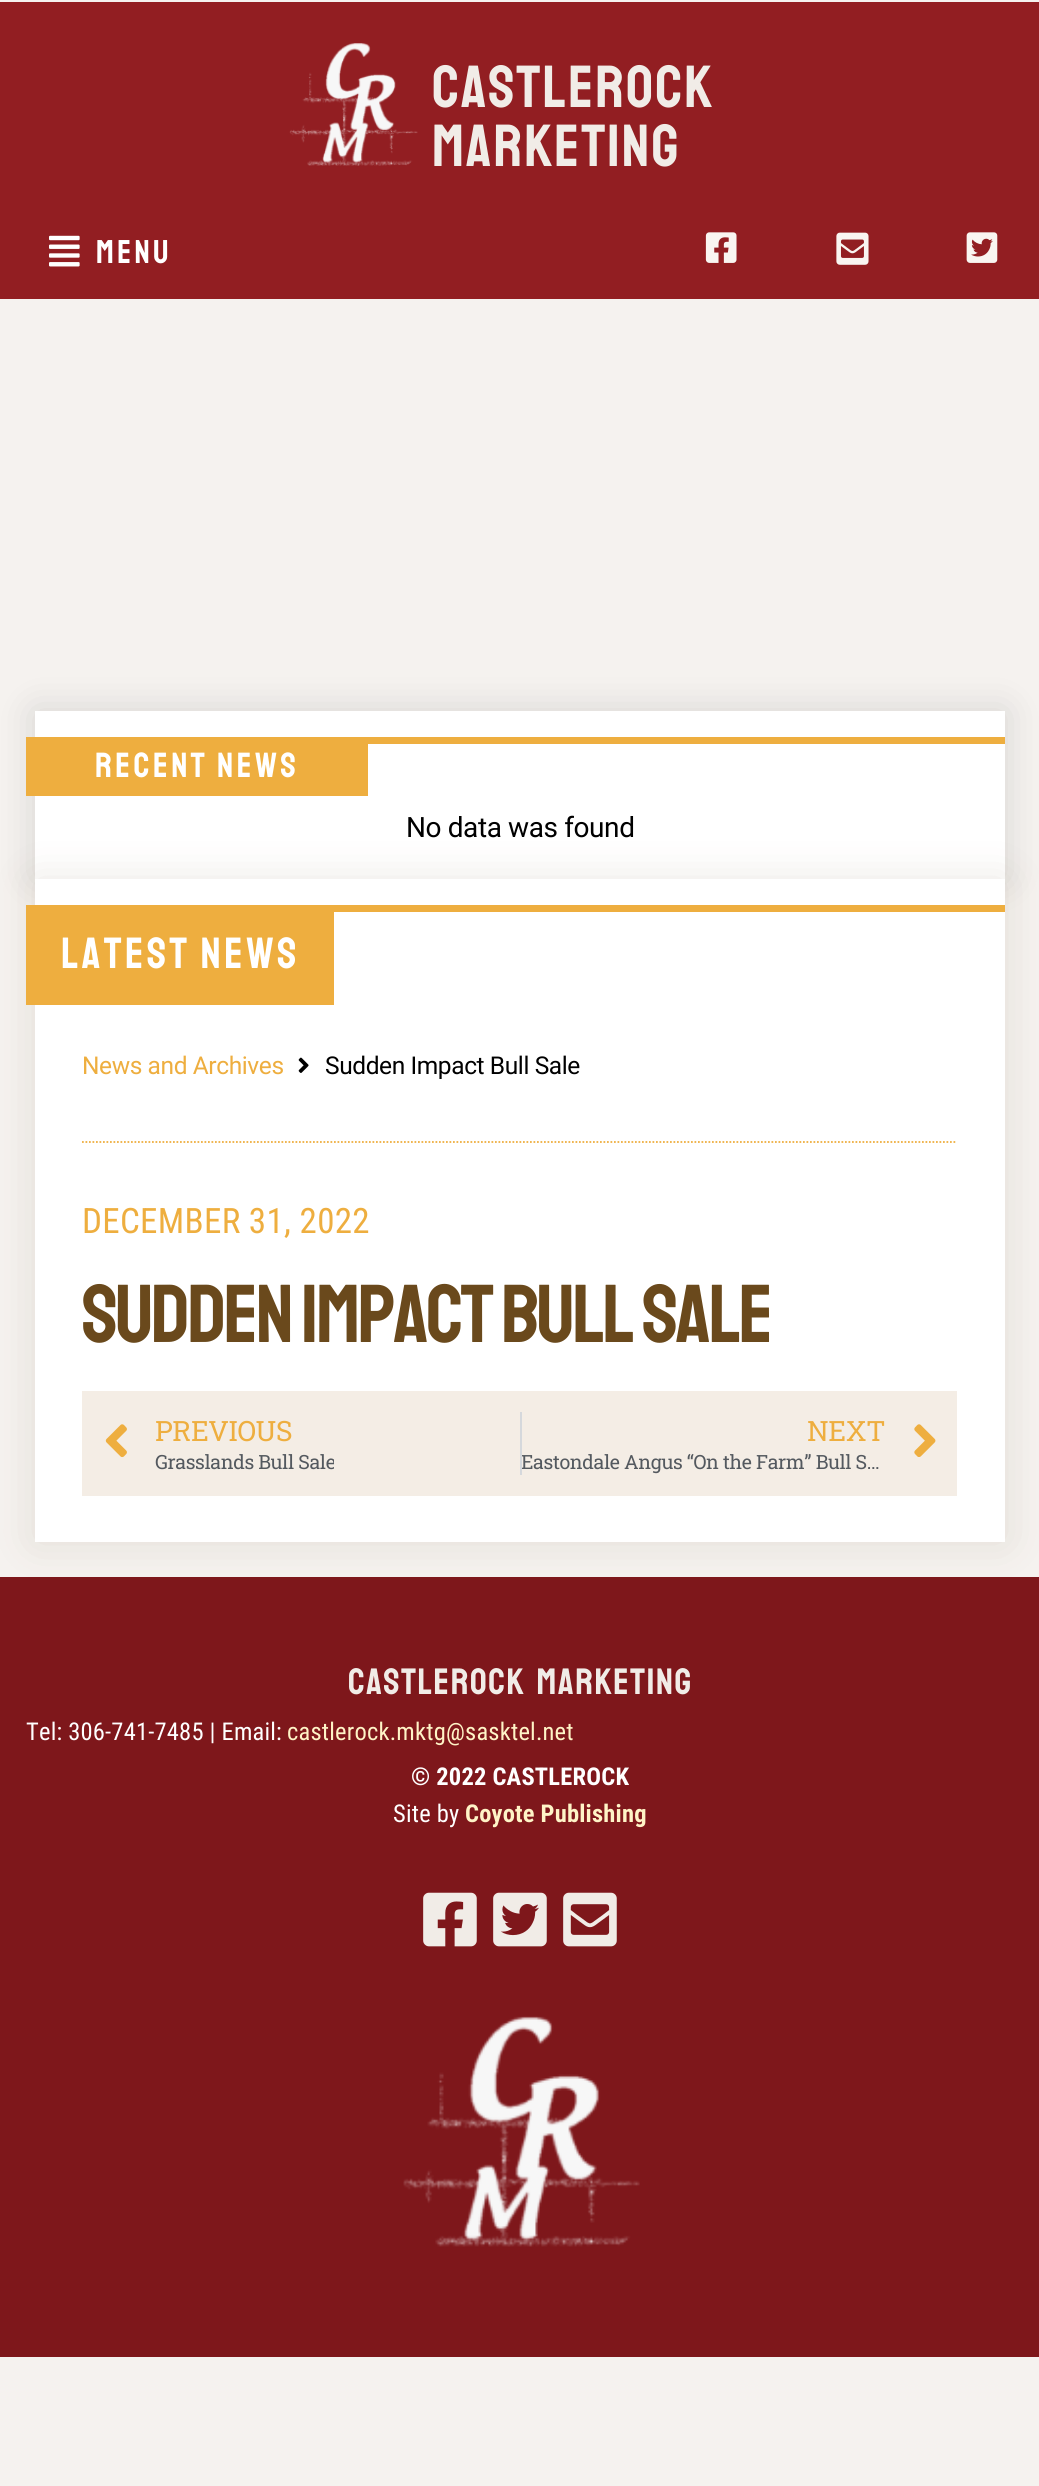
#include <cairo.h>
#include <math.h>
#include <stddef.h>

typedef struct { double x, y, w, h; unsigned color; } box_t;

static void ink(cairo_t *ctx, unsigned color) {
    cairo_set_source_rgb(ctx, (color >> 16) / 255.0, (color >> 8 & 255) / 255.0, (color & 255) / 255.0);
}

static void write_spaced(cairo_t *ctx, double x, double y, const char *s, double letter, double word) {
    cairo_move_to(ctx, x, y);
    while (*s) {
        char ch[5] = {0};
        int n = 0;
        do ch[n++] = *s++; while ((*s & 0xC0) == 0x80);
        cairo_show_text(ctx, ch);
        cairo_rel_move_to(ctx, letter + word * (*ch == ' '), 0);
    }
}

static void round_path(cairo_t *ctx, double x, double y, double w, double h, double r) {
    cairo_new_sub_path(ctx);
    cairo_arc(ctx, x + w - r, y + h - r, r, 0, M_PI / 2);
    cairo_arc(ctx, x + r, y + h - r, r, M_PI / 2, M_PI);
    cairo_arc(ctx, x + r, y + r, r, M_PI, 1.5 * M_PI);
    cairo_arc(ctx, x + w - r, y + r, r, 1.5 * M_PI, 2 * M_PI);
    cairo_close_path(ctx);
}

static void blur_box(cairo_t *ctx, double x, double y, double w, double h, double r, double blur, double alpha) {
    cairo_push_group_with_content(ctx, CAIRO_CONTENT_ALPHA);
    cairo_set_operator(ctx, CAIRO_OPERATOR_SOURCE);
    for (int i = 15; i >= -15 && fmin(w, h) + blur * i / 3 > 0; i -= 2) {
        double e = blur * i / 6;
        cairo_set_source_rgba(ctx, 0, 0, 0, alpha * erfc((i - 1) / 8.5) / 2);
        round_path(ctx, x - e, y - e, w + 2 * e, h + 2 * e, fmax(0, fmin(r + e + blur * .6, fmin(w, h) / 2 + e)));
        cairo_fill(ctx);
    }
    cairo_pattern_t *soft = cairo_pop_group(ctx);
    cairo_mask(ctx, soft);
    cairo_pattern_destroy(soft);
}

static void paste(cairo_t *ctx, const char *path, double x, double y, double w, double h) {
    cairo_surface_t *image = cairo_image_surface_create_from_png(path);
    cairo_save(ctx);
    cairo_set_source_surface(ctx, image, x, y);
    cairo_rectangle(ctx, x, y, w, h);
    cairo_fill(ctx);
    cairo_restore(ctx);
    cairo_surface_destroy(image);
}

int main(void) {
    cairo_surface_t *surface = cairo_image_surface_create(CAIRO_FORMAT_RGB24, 1039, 2486);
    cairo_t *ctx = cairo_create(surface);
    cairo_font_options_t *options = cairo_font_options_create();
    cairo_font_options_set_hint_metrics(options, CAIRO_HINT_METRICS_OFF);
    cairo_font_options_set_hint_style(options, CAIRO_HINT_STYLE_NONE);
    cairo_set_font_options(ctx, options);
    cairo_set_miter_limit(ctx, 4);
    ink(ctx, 0xF5F2EF);
    cairo_paint(ctx);
    ink(ctx, 0x921E22);
    cairo_rectangle(ctx, 0, 2, 1039, 297);
    cairo_fill(ctx);
    paste(ctx, "media/1.png", 289, 43, 129, 123);
    cairo_select_font_face(ctx, "Bayon", CAIRO_FONT_SLANT_NORMAL, CAIRO_FONT_WEIGHT_NORMAL);
    cairo_set_font_size(ctx, 59.5);
    ink(ctx, 0xF1ECE7);
    write_spaced(ctx, 432, 107, "CASTLEROCK", 2.1, 0);
    write_spaced(ctx, 432, 166, "MARKETING", 2.1, 0);
    paste(ctx, "media/2.png", 49, 235, 31, 32);
    cairo_set_font_size(ctx, 33);
    ink(ctx, 0xFFFFFF);
    write_spaced(ctx, 96, 263, "MENU", 3.5, 0);
    paste(ctx, "media/3.png", 705, 232, 32, 31);
    paste(ctx, "media/4.png", 836, 232, 33, 33);
    paste(ctx, "media/5.png", 966, 232, 32, 31);
    ink(ctx, 0x000000);
    blur_box(ctx, 35, 711, 970, 168, 0, 18.5, 0.13);
    {
        static const box_t items[] = {
            {35, 711, 970, 168, 0xFFFFFF},
            {368, 737, 637, 7, 0xEEAE3F},
            {26, 737, 342, 59, 0xEEAE3F},
        };
        for (size_t i = 0; i < sizeof items / sizeof *items; i++) {
            ink(ctx, items[i].color);
            cairo_rectangle(ctx, items[i].x, items[i].y, items[i].w, items[i].h);
            cairo_fill(ctx);
        }
    }
    cairo_select_font_face(ctx, "Staatliches", CAIRO_FONT_SLANT_NORMAL, CAIRO_FONT_WEIGHT_NORMAL);
    cairo_set_font_size(ctx, 35);
    ink(ctx, 0xFFFFFF);
    write_spaced(ctx, 95, 777, "RECENT NEWS", 3.5, 0);
    cairo_select_font_face(ctx, "Roboto", CAIRO_FONT_SLANT_NORMAL, CAIRO_FONT_WEIGHT_NORMAL);
    cairo_set_font_size(ctx, 28);
    ink(ctx, 0x000000);
    write_spaced(ctx, 406, 837, "No data was found", -0.4, 0);
    ink(ctx, 0x452D04);
    blur_box(ctx, 35, 879, 970, 663, 0, 21, 0.11);
    {
        static const box_t items[] = {
            {35, 879, 970, 663, 0xFFFFFF},
            {334, 905, 671, 7, 0xEEAE3F},
            {26, 905, 308, 100, 0xEEAE3F},
        };
        for (size_t i = 0; i < sizeof items / sizeof *items; i++) {
            ink(ctx, items[i].color);
            cairo_rectangle(ctx, items[i].x, items[i].y, items[i].w, items[i].h);
            cairo_fill(ctx);
        }
    }
    cairo_select_font_face(ctx, "Staatliches", CAIRO_FONT_SLANT_NORMAL, CAIRO_FONT_WEIGHT_NORMAL);
    cairo_set_font_size(ctx, 43.75);
    ink(ctx, 0xFFFFFF);
    write_spaced(ctx, 61, 968, "LATEST NEWS", 3.5, 0);
    cairo_select_font_face(ctx, "Roboto", CAIRO_FONT_SLANT_NORMAL, CAIRO_FONT_WEIGHT_NORMAL);
    cairo_set_font_size(ctx, 24.5);
    ink(ctx, 0xEEAE3F);
    write_spaced(ctx, 82, 1074, "News and Archives", -0.4, 0);
    paste(ctx, "media/6.png", 298, 1057, 11, 16);
    ink(ctx, 0x000000);
    write_spaced(ctx, 325, 1074, "Sudden Impact Bull Sale", -0.4, 0);
    cairo_new_path(ctx);
    cairo_move_to(ctx, 82, 1142);
    cairo_line_to(ctx, 957, 1142);
    ink(ctx, 0xEEAE3F);
    cairo_set_line_width(ctx, 1.8);
    cairo_set_dash(ctx, (double[]){1.75, 1.75}, 2, 0);
    cairo_stroke(ctx);
    cairo_select_font_face(ctx, "Roboto Condensed", CAIRO_FONT_SLANT_NORMAL, CAIRO_FONT_WEIGHT_NORMAL);
    cairo_set_font_size(ctx, 35);
    write_spaced(ctx, 82, 1233, "DECEMBER 31, 2022", 0.3, 0);
    cairo_select_font_face(ctx, "Staatliches", CAIRO_FONT_SLANT_NORMAL, CAIRO_FONT_WEIGHT_NORMAL);
    cairo_set_font_size(ctx, 82.25);
    ink(ctx, 0x6A491C);
    write_spaced(ctx, 82, 1342, "Sudden Impact Bull Sale", -2.45, 0);
    ink(ctx, 0xF4EDE5);
    cairo_rectangle(ctx, 82, 1391, 875, 105);
    cairo_fill(ctx);
    paste(ctx, "media/7.png", 105, 1424, 22, 34);
    cairo_select_font_face(ctx, "Roboto Slab", CAIRO_FONT_SLANT_NORMAL, CAIRO_FONT_WEIGHT_NORMAL);
    cairo_set_font_size(ctx, 28);
    ink(ctx, 0xEEAE3F);
    write_spaced(ctx, 155, 1441, "PREVIOUS", -0.4, 0);
    cairo_save(ctx);
    cairo_rectangle(ctx, 154, 1449, 180, 26);
    cairo_clip(ctx);
    cairo_set_font_size(ctx, 19.6);
    ink(ctx, 0x54595F);
    write_spaced(ctx, 155, 1469, "Grasslands Bull Sale", -0.4, 0);
    cairo_restore(ctx);
    ink(ctx, 0xD5D8DC);
    cairo_rectangle(ctx, 520, 1412, 2, 63);
    cairo_fill(ctx);
    ink(ctx, 0xEEAE3F);
    write_spaced(ctx, 807, 1441, "NEXT", -0.4, 0);
    cairo_save(ctx);
    cairo_rectangle(ctx, 522, 1449, 364, 26);
    cairo_clip(ctx);
    cairo_set_font_size(ctx, 19.6);
    ink(ctx, 0x54595F);
    write_spaced(ctx, 521, 1469, "Eastondale Angus “On the Farm” Bull S…", -0.4, 0);
    cairo_restore(ctx);
    paste(ctx, "media/8.png", 914, 1424, 22, 33);
    ink(ctx, 0x7E171B);
    cairo_rectangle(ctx, 0, 1577, 1039, 780);
    cairo_fill(ctx);
    cairo_select_font_face(ctx, "Bayon", CAIRO_FONT_SLANT_NORMAL, CAIRO_FONT_WEIGHT_NORMAL);
    cairo_set_font_size(ctx, 36.75);
    ink(ctx, 0xF1ECE7);
    write_spaced(ctx, 348, 1694, "CASTLEROCK MARKETING", 1.6, 0);
    cairo_select_font_face(ctx, "Roboto Condensed", CAIRO_FONT_SLANT_NORMAL, CAIRO_FONT_WEIGHT_NORMAL);
    cairo_set_font_size(ctx, 24.5);
    ink(ctx, 0xFFFFFF);
    write_spaced(ctx, 26, 1740, "Tel: 306-741-7485 | Email:", 0.2, 0);
    ink(ctx, 0xFFF4C7);
    write_spaced(ctx, 287, 1740, "castlerock.mktg@sasktel.net", 0.2, 0);
    cairo_select_font_face(ctx, "Roboto Condensed", CAIRO_FONT_SLANT_NORMAL, CAIRO_FONT_WEIGHT_BOLD);
    ink(ctx, 0xFFFFFF);
    write_spaced(ctx, 411, 1785, "© 2022 CASTLEROCK", 0.2, 0);
    cairo_select_font_face(ctx, "Roboto Condensed", CAIRO_FONT_SLANT_NORMAL, CAIRO_FONT_WEIGHT_NORMAL);
    write_spaced(ctx, 393, 1822, "Site by", 0.2, 0);
    cairo_select_font_face(ctx, "Roboto Condensed", CAIRO_FONT_SLANT_NORMAL, CAIRO_FONT_WEIGHT_BOLD);
    ink(ctx, 0xFFF4C7);
    write_spaced(ctx, 465, 1822, "Coyote Publishing", 0.2, 0);
    paste(ctx, "media/9.png", 423, 1892, 54, 55);
    paste(ctx, "media/10.png", 493, 1892, 54, 55);
    paste(ctx, "media/11.png", 563, 1892, 54, 55);
    paste(ctx, "media/12.png", 403, 2016, 237, 231);
    cairo_surface_write_to_png(surface, "image.png");
    cairo_font_options_destroy(options);
    cairo_destroy(ctx);
    cairo_surface_destroy(surface);
    return 0;
}
